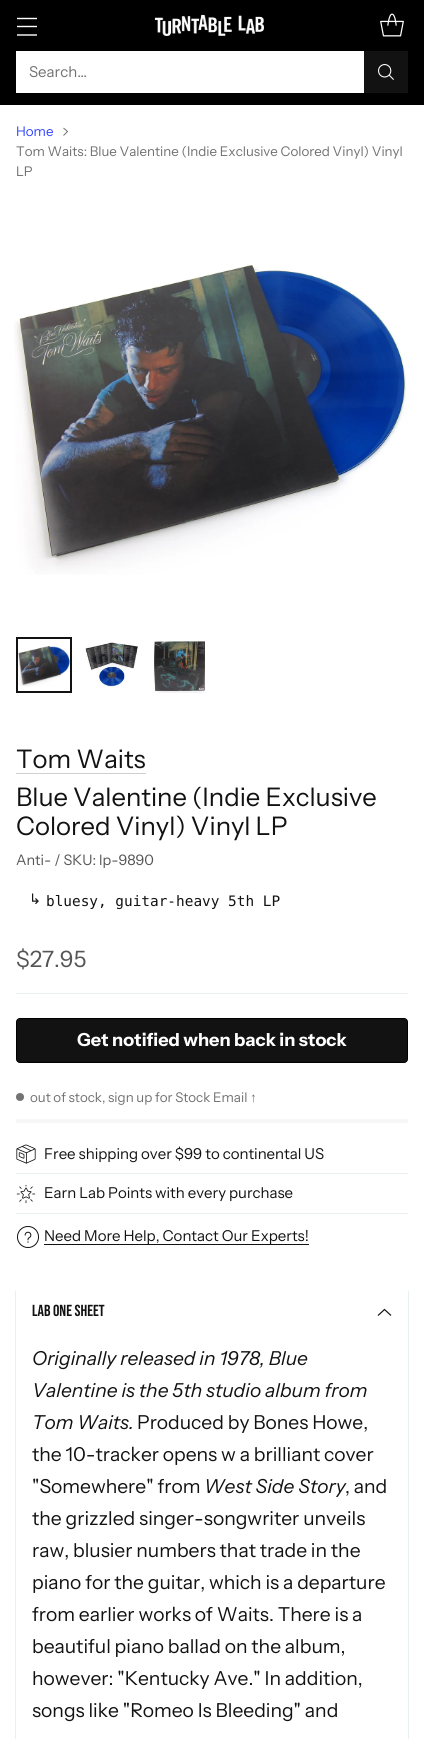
#include <cairo.h>
#include <math.h>
#include <stddef.h>

typedef struct { double x, y; const char *s; } line_t;

static void ink(cairo_t *ctx, unsigned color) {
    cairo_set_source_rgb(ctx, (color >> 16) / 255.0, (color >> 8 & 255) / 255.0, (color & 255) / 255.0);
}

static void round_path(cairo_t *ctx, double x, double y, double w, double h, double r) {
    cairo_new_sub_path(ctx);
    cairo_arc(ctx, x + w - r, y + h - r, r, 0, M_PI / 2);
    cairo_arc(ctx, x + r, y + h - r, r, M_PI / 2, M_PI);
    cairo_arc(ctx, x + r, y + r, r, M_PI, 1.5 * M_PI);
    cairo_arc(ctx, x + w - r, y + r, r, 1.5 * M_PI, 2 * M_PI);
    cairo_close_path(ctx);
}

static void paste(cairo_t *ctx, const char *path, double x, double y, double w, double h) {
    cairo_surface_t *image = cairo_image_surface_create_from_png(path);
    cairo_save(ctx);
    cairo_set_source_surface(ctx, image, x, y);
    cairo_rectangle(ctx, x, y, w, h);
    cairo_fill(ctx);
    cairo_restore(ctx);
    cairo_surface_destroy(image);
}

int main(void) {
    cairo_surface_t *surface = cairo_image_surface_create(CAIRO_FORMAT_RGB24, 424, 1739);
    cairo_t *ctx = cairo_create(surface);
    cairo_font_options_t *options = cairo_font_options_create();
    cairo_font_options_set_hint_metrics(options, CAIRO_HINT_METRICS_OFF);
    cairo_font_options_set_hint_style(options, CAIRO_HINT_STYLE_NONE);
    cairo_set_font_options(ctx, options);
    cairo_set_miter_limit(ctx, 4);
    ink(ctx, 0xFFFFFF);
    cairo_paint(ctx);
    ink(ctx, 0x000000);
    cairo_rectangle(ctx, 0, 0, 424, 105);
    cairo_fill(ctx);
    cairo_new_path(ctx);
    cairo_move_to(ctx, 17, 26.5);
    cairo_line_to(ctx, 37, 26.5);
    cairo_move_to(ctx, 17, 18.5);
    cairo_line_to(ctx, 37, 18.5);
    cairo_move_to(ctx, 17, 35);
    cairo_line_to(ctx, 37, 35);
    ink(ctx, 0xFFFFFF);
    cairo_set_line_width(ctx, 1.4);
    cairo_stroke(ctx);
    paste(ctx, "media/1.png", 154, 14, 110, 22);
    paste(ctx, "media/2.png", 380, 13, 24, 24);
    cairo_rectangle(ctx, 16, 51, 348, 42);
    cairo_fill(ctx);
    cairo_select_font_face(ctx, "Instrument Sans", CAIRO_FONT_SLANT_NORMAL, CAIRO_FONT_WEIGHT_NORMAL);
    cairo_set_font_size(ctx, 15);
    ink(ctx, 0x717171);
    cairo_move_to(ctx, 29, 77);
    cairo_show_text(ctx, "Search…");
    ink(ctx, 0x121212);
    cairo_rectangle(ctx, 364, 51, 44, 42);
    cairo_fill(ctx);
    paste(ctx, "media/3.png", 378, 64, 16, 16);
    cairo_set_font_size(ctx, 13.35);
    ink(ctx, 0x3245FF);
    cairo_move_to(ctx, 16, 136);
    cairo_show_text(ctx, "Home");
    cairo_new_path(ctx);
    cairo_move_to(ctx, 63.5, 135.5);
    cairo_line_to(ctx, 67.5, 131.5);
    cairo_line_to(ctx, 63.5, 128);
    ink(ctx, 0x717171);
    cairo_set_line_width(ctx, 1);
    cairo_stroke(ctx);
    cairo_move_to(ctx, 16, 156);
    cairo_show_text(ctx, "Tom Waits: Blue Valentine (Indie Exclusive Colored Vinyl) Vinyl");
    cairo_move_to(ctx, 16, 176);
    cairo_show_text(ctx, "LP");
    paste(ctx, "media/4.png", 14, 264, 392, 311);
    paste(ctx, "media/5.png", 18, 646, 52, 41);
    cairo_rectangle(ctx, 17, 638, 54, 54);
    ink(ctx, 0x121212);
    cairo_set_line_width(ctx, 2);
    cairo_stroke(ctx);
    paste(ctx, "media/6.png", 85, 642, 53, 45);
    paste(ctx, "media/7.png", 153, 639, 53, 54);
    ink(ctx, 0xE7EFF0);
    cairo_rectangle(ctx, 16, 993, 392, 1);
    cairo_fill(ctx);
    cairo_set_font_size(ctx, 25.6);
    ink(ctx, 0x121212);
    cairo_move_to(ctx, 16, 768);
    cairo_show_text(ctx, "Tom Waits");
    ink(ctx, 0xCFCFCF);
    cairo_rectangle(ctx, 16, 773, 130, 1);
    cairo_fill(ctx);
    ink(ctx, 0x121212);
    cairo_move_to(ctx, 16, 806);
    cairo_show_text(ctx, "Blue Valentine (Indie Exclusive");
    cairo_move_to(ctx, 16, 835);
    cairo_show_text(ctx, "Colored Vinyl) Vinyl LP");
    cairo_set_font_size(ctx, 14.4);
    ink(ctx, 0x555555);
    cairo_move_to(ctx, 16, 865);
    cairo_show_text(ctx, "Anti- / SKU: lp-9890");
    cairo_select_font_face(ctx, "DejaVu Sans", CAIRO_FONT_SLANT_NORMAL, CAIRO_FONT_WEIGHT_NORMAL);
    ink(ctx, 0x121212);
    cairo_move_to(ctx, 29, 904);
    cairo_show_text(ctx, "↳");
    cairo_select_font_face(ctx, "DejaVu Sans Mono", CAIRO_FONT_SLANT_NORMAL, CAIRO_FONT_WEIGHT_NORMAL);
    cairo_move_to(ctx, 46, 906);
    cairo_show_text(ctx, "bluesy, guitar-heavy 5th LP");
    cairo_select_font_face(ctx, "Instrument Sans", CAIRO_FONT_SLANT_NORMAL, CAIRO_FONT_WEIGHT_NORMAL);
    cairo_set_font_size(ctx, 22.5);
    ink(ctx, 0x555555);
    cairo_move_to(ctx, 16, 967);
    cairo_show_text(ctx, "$27.95");
    ink(ctx, 0x121212);
    round_path(ctx, 16.5, 1018.5, 391, 44, 3.5);
    cairo_fill_preserve(ctx);
    ink(ctx, 0x000000);
    cairo_set_line_width(ctx, 1);
    cairo_stroke(ctx);
    cairo_select_font_face(ctx, "Instrument Sans", CAIRO_FONT_SLANT_NORMAL, CAIRO_FONT_WEIGHT_BOLD);
    cairo_set_font_size(ctx, 18);
    ink(ctx, 0xFFFFFF);
    cairo_move_to(ctx, 77, 1046);
    cairo_show_text(ctx, "Get notified when back in stock");
    ink(ctx, 0x737373);
    cairo_new_path(ctx);
    cairo_arc(ctx, 20, 1097, 4, 0, 2 * M_PI);
    cairo_fill(ctx);
    cairo_select_font_face(ctx, "Instrument Sans", CAIRO_FONT_SLANT_NORMAL, CAIRO_FONT_WEIGHT_NORMAL);
    cairo_set_font_size(ctx, 13.35);
    ink(ctx, 0x717171);
    cairo_move_to(ctx, 30, 1102);
    cairo_show_text(ctx, "out of stock, sign up for Stock Email");
    cairo_select_font_face(ctx, "Liberation Sans", CAIRO_FONT_SLANT_NORMAL, CAIRO_FONT_WEIGHT_NORMAL);
    cairo_move_to(ctx, 250, 1102);
    cairo_show_text(ctx, "↑");
    ink(ctx, 0xF7F7F7);
    cairo_rectangle(ctx, 16, 1119, 392, 4);
    cairo_fill(ctx);
    paste(ctx, "media/8.png", 16, 1144, 20, 20);
    cairo_select_font_face(ctx, "Instrument Sans", CAIRO_FONT_SLANT_NORMAL, CAIRO_FONT_WEIGHT_NORMAL);
    cairo_set_font_size(ctx, 15);
    ink(ctx, 0x121212);
    cairo_move_to(ctx, 44, 1159);
    cairo_show_text(ctx, "Free shipping over $99 to continental US");
    ink(ctx, 0xE7EFF0);
    cairo_rectangle(ctx, 16, 1173, 392, 1);
    cairo_fill(ctx);
    cairo_rectangle(ctx, 16, 1213, 392, 1);
    cairo_fill(ctx);
    paste(ctx, "media/9.png", 16, 1184, 20, 20);
    ink(ctx, 0x121212);
    cairo_move_to(ctx, 44, 1198);
    cairo_show_text(ctx, "Earn Lab Points with every purchase");
    paste(ctx, "media/10.png", 17, 1226, 22, 22);
    cairo_rectangle(ctx, 44, 1244, 265, 1);
    cairo_fill(ctx);
    cairo_move_to(ctx, 44, 1241);
    cairo_show_text(ctx, "Need More Help, Contact Our Experts!");
    cairo_save(ctx);
    cairo_rectangle(ctx, 0, 1291, 424, 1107);
    cairo_clip(ctx);
    cairo_rectangle(ctx, 15.5, 1290.5, 393, 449);
    ink(ctx, 0xE7EFF0);
    cairo_stroke(ctx);
    cairo_restore(ctx);
    cairo_select_font_face(ctx, "Bebas Neue", CAIRO_FONT_SLANT_NORMAL, CAIRO_FONT_WEIGHT_NORMAL);
    cairo_set_font_size(ctx, 16);
    cairo_move_to(ctx, 32, 1316);
    cairo_show_text(ctx, "Lab One Sheet");
    cairo_new_path(ctx);
    cairo_move_to(ctx, 378, 1315.5);
    cairo_line_to(ctx, 384.5, 1309.5);
    cairo_line_to(ctx, 391, 1315.5);
    cairo_set_line_width(ctx, 1.2);
    cairo_stroke(ctx);
    cairo_select_font_face(ctx, "Instrument Sans", CAIRO_FONT_SLANT_ITALIC, CAIRO_FONT_WEIGHT_NORMAL);
    cairo_set_font_size(ctx, 19.25);
    {
        static const line_t items[] = {
            {32, 1365, "Originally released in 1978, Blue"},
            {32, 1397, "Valentine is the 5th studio album from"},
            {32, 1429, "Tom Waits."},
        };
        for (size_t i = 0; i < sizeof items / sizeof *items; i++) {
            cairo_move_to(ctx, items[i].x, items[i].y);
            cairo_show_text(ctx, items[i].s);
        }
    }
    cairo_select_font_face(ctx, "Instrument Sans", CAIRO_FONT_SLANT_NORMAL, CAIRO_FONT_WEIGHT_NORMAL);
    {
        static const line_t items[] = {
            {137, 1429, "Produced by Bones Howe,"},
            {32, 1461, "the 10-tracker opens w a brilliant cover"},
            {32, 1493, "\"Somewhere\" from"},
        };
        for (size_t i = 0; i < sizeof items / sizeof *items; i++) {
            cairo_move_to(ctx, items[i].x, items[i].y);
            cairo_show_text(ctx, items[i].s);
        }
    }
    cairo_select_font_face(ctx, "Instrument Sans", CAIRO_FONT_SLANT_ITALIC, CAIRO_FONT_WEIGHT_NORMAL);
    cairo_move_to(ctx, 204, 1493);
    cairo_show_text(ctx, "West Side Story");
    cairo_select_font_face(ctx, "Instrument Sans", CAIRO_FONT_SLANT_NORMAL, CAIRO_FONT_WEIGHT_NORMAL);
    {
        static const line_t items[] = {
            {345, 1493, ", and"},
            {32, 1525, "the grizzled singer-songwriter unveils"},
            {32, 1557, "raw, blusier numbers that trade in the"},
            {32, 1589, "piano for the guitar, which is a departure"},
            {32, 1621, "from earlier works of Waits. There is a"},
            {32, 1653, "beautiful piano ballad on the album,"},
            {32, 1685, "however: \"Kentucky Ave.\" In addition,"},
            {32, 1717, "songs like \"Romeo Is Bleeding\" and"},
        };
        for (size_t i = 0; i < sizeof items / sizeof *items; i++) {
            cairo_move_to(ctx, items[i].x, items[i].y);
            cairo_show_text(ctx, items[i].s);
        }
    }
    cairo_surface_write_to_png(surface, "image.png");
    cairo_font_options_destroy(options);
    cairo_destroy(ctx);
    cairo_surface_destroy(surface);
    return 0;
}
